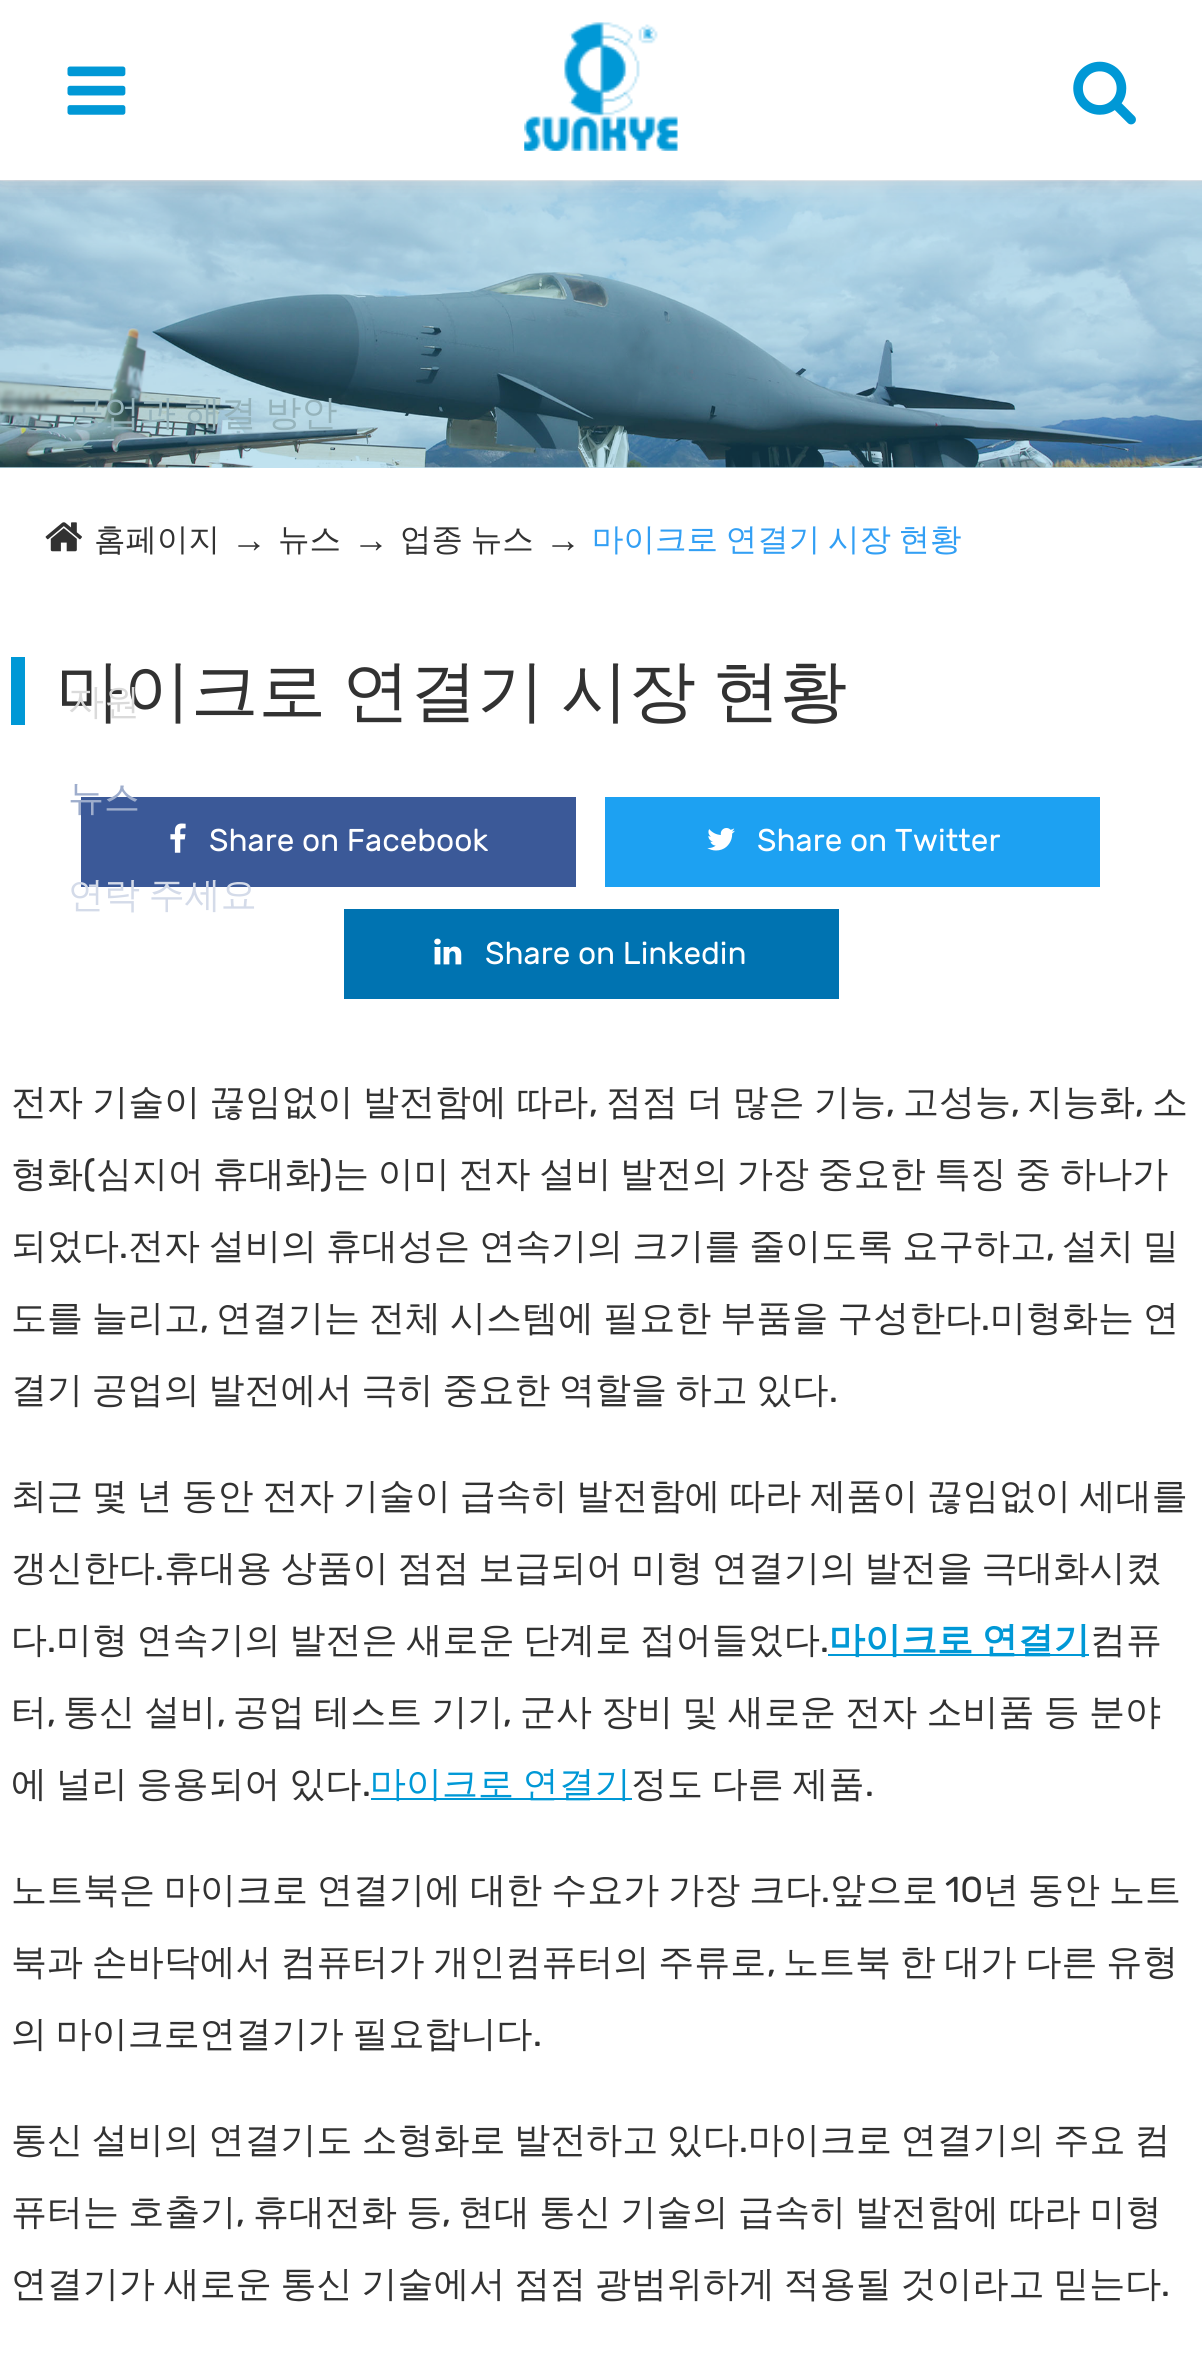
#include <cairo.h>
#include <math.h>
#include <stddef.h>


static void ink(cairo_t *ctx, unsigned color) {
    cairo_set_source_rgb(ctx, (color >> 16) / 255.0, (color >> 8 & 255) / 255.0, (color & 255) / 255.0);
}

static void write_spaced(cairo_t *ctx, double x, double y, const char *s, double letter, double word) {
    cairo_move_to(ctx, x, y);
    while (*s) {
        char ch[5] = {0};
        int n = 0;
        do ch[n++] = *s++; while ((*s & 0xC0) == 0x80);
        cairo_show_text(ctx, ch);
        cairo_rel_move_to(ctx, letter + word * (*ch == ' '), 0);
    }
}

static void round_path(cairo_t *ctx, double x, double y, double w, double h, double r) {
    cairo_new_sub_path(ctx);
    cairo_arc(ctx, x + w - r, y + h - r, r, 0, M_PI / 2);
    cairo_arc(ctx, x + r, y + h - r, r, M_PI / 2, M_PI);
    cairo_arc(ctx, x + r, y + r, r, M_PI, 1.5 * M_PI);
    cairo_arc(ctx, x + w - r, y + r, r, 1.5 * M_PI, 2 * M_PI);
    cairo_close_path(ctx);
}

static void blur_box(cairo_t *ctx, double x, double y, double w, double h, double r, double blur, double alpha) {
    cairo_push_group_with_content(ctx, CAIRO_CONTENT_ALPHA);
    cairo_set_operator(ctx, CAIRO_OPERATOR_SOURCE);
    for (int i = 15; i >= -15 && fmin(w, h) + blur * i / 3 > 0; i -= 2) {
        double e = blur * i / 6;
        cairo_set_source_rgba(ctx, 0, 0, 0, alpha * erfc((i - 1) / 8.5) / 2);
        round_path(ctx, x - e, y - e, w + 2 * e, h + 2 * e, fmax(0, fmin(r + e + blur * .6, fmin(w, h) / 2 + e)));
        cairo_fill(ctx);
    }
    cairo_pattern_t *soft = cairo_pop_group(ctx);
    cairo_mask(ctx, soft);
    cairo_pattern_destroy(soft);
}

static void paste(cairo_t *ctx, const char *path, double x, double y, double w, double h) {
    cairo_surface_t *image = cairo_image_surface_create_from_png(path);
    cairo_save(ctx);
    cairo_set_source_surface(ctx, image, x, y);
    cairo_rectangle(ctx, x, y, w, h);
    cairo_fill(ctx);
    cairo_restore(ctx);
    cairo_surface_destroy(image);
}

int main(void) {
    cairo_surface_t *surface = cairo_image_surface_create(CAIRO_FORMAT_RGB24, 1202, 2368);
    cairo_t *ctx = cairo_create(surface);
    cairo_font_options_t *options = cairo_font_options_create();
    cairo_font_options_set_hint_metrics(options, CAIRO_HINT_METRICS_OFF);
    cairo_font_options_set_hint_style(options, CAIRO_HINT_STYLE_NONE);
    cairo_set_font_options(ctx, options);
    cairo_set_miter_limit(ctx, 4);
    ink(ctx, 0xFFFFFF);
    cairo_paint(ctx);
    paste(ctx, "media/1.png", 0, 180, 1202, 288);
    cairo_save(ctx);
    cairo_rectangle(ctx, 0, 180, 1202, 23);
    cairo_clip(ctx);
    ink(ctx, 0xDDDDDD);
    blur_box(ctx, 0, 0, 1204, 180, 0, 11, 1);
    cairo_restore(ctx);
    paste(ctx, "media/2.png", 524, 22, 154, 129);
    paste(ctx, "media/3.png", 1073, 61, 63, 64);
    paste(ctx, "media/4.png", 67, 66, 59, 49);
    cairo_select_font_face(ctx, "WenQuanYi Zen Hei Medium", CAIRO_FONT_SLANT_NORMAL, CAIRO_FONT_WEIGHT_NORMAL);
    cairo_set_font_size(ctx, 36);
    ink(ctx, 0x95B3BB);
    write_spaced(ctx, 68, 425, "공업과 해결 방안", 0, -2);
    cairo_set_font_size(ctx, 67.5);
    ink(ctx, 0x323232);
    write_spaced(ctx, 56, 714, "마이크로 연결기 시장 현황", 0, -4);
    cairo_set_font_size(ctx, 36);
    ink(ctx, 0xDADADA);
    cairo_move_to(ctx, 68, 714);
    cairo_show_text(ctx, "자원");
    ink(ctx, 0x3B5998);
    cairo_rectangle(ctx, 81, 797, 495, 90);
    cairo_fill(ctx);
    ink(ctx, 0x9EADCC);
    cairo_move_to(ctx, 68, 810);
    cairo_show_text(ctx, "뉴스");
    ink(ctx, 0xD4DBE9);
    write_spaced(ctx, 68, 907, "연락 주세요", 0, -2);
    paste(ctx, "media/5.png", 45, 522, 37, 30);
    cairo_set_font_size(ctx, 31.5);
    ink(ctx, 0x323232);
    cairo_move_to(ctx, 94, 550);
    cairo_show_text(ctx, "홈페이지");
    cairo_select_font_face(ctx, "Liberation Serif", CAIRO_FONT_SLANT_NORMAL, CAIRO_FONT_WEIGHT_NORMAL);
    cairo_set_font_size(ctx, 36);
    cairo_move_to(ctx, 231, 552);
    cairo_show_text(ctx, "→");
    cairo_select_font_face(ctx, "WenQuanYi Zen Hei Medium", CAIRO_FONT_SLANT_NORMAL, CAIRO_FONT_WEIGHT_NORMAL);
    cairo_set_font_size(ctx, 31.5);
    cairo_move_to(ctx, 278, 550);
    cairo_show_text(ctx, "뉴스");
    cairo_select_font_face(ctx, "Liberation Serif", CAIRO_FONT_SLANT_NORMAL, CAIRO_FONT_WEIGHT_NORMAL);
    cairo_set_font_size(ctx, 36);
    cairo_move_to(ctx, 353, 552);
    cairo_show_text(ctx, "→");
    cairo_select_font_face(ctx, "WenQuanYi Zen Hei Medium", CAIRO_FONT_SLANT_NORMAL, CAIRO_FONT_WEIGHT_NORMAL);
    cairo_set_font_size(ctx, 31.5);
    write_spaced(ctx, 400, 550, "업종 뉴스", 0, -1.75);
    cairo_select_font_face(ctx, "Liberation Serif", CAIRO_FONT_SLANT_NORMAL, CAIRO_FONT_WEIGHT_NORMAL);
    cairo_set_font_size(ctx, 36);
    cairo_move_to(ctx, 545, 552);
    cairo_show_text(ctx, "→");
    cairo_select_font_face(ctx, "WenQuanYi Zen Hei Medium", CAIRO_FONT_SLANT_NORMAL, CAIRO_FONT_WEIGHT_NORMAL);
    cairo_set_font_size(ctx, 31.5);
    ink(ctx, 0x329FF4);
    write_spaced(ctx, 592, 550, "마이크로 연결기 시장 현황", 0, -1.75);
    ink(ctx, 0x0098D6);
    cairo_rectangle(ctx, 11, 657, 14, 68);
    cairo_fill(ctx);
    paste(ctx, "media/6.png", 170, 823, 16, 30);
    cairo_select_font_face(ctx, "Rubik", CAIRO_FONT_SLANT_NORMAL, CAIRO_FONT_WEIGHT_NORMAL);
    ink(ctx, 0xFFFFFF);
    cairo_move_to(ctx, 209, 851);
    cairo_show_text(ctx, "Share on Facebook");
    ink(ctx, 0x1DA1F2);
    cairo_rectangle(ctx, 605, 797, 495, 90);
    cairo_fill(ctx);
    paste(ctx, "media/7.png", 707, 828, 28, 23);
    ink(ctx, 0xFFFFFF);
    cairo_move_to(ctx, 757, 851);
    cairo_show_text(ctx, "Share on Twitter");
    ink(ctx, 0x0073B1);
    cairo_rectangle(ctx, 344, 909, 495, 90);
    cairo_fill(ctx);
    paste(ctx, "media/8.png", 434, 938, 28, 27);
    ink(ctx, 0xFFFFFF);
    cairo_move_to(ctx, 485, 964);
    cairo_show_text(ctx, "Share on Linkedin");
    cairo_select_font_face(ctx, "WenQuanYi Zen Hei Medium", CAIRO_FONT_SLANT_NORMAL, CAIRO_FONT_WEIGHT_NORMAL);
    cairo_set_font_size(ctx, 36);
    ink(ctx, 0x323232);
    write_spaced(ctx, 11, 1114, "전자 기술이 끊임없이 발전함에 따라", 0, -1.5);
    cairo_select_font_face(ctx, "Rubik", CAIRO_FONT_SLANT_NORMAL, CAIRO_FONT_WEIGHT_NORMAL);
    cairo_move_to(ctx, 589, 1114);
    cairo_show_text(ctx, ",");
    cairo_select_font_face(ctx, "WenQuanYi Zen Hei Medium", CAIRO_FONT_SLANT_NORMAL, CAIRO_FONT_WEIGHT_NORMAL);
    write_spaced(ctx, 606, 1114, "점점 더 많은 기능", 0, -1.5);
    cairo_select_font_face(ctx, "Rubik", CAIRO_FONT_SLANT_NORMAL, CAIRO_FONT_WEIGHT_NORMAL);
    cairo_move_to(ctx, 886, 1114);
    cairo_show_text(ctx, ",");
    cairo_select_font_face(ctx, "WenQuanYi Zen Hei Medium", CAIRO_FONT_SLANT_NORMAL, CAIRO_FONT_WEIGHT_NORMAL);
    cairo_move_to(ctx, 903, 1114);
    cairo_show_text(ctx, "고성능");
    cairo_select_font_face(ctx, "Rubik", CAIRO_FONT_SLANT_NORMAL, CAIRO_FONT_WEIGHT_NORMAL);
    cairo_move_to(ctx, 1011, 1114);
    cairo_show_text(ctx, ",");
    cairo_select_font_face(ctx, "WenQuanYi Zen Hei Medium", CAIRO_FONT_SLANT_NORMAL, CAIRO_FONT_WEIGHT_NORMAL);
    cairo_move_to(ctx, 1027, 1114);
    cairo_show_text(ctx, "지능화");
    cairo_select_font_face(ctx, "Rubik", CAIRO_FONT_SLANT_NORMAL, CAIRO_FONT_WEIGHT_NORMAL);
    cairo_move_to(ctx, 1135, 1114);
    cairo_show_text(ctx, ",");
    cairo_select_font_face(ctx, "WenQuanYi Zen Hei Medium", CAIRO_FONT_SLANT_NORMAL, CAIRO_FONT_WEIGHT_NORMAL);
    cairo_move_to(ctx, 1152, 1114);
    cairo_show_text(ctx, "소");
    cairo_move_to(ctx, 11, 1186);
    cairo_show_text(ctx, "형화");
    cairo_select_font_face(ctx, "Rubik", CAIRO_FONT_SLANT_NORMAL, CAIRO_FONT_WEIGHT_NORMAL);
    cairo_move_to(ctx, 83, 1186);
    cairo_show_text(ctx, "(");
    cairo_select_font_face(ctx, "WenQuanYi Zen Hei Medium", CAIRO_FONT_SLANT_NORMAL, CAIRO_FONT_WEIGHT_NORMAL);
    write_spaced(ctx, 96, 1186, "심지어 휴대화", 0, -2);
    cairo_select_font_face(ctx, "Rubik", CAIRO_FONT_SLANT_NORMAL, CAIRO_FONT_WEIGHT_NORMAL);
    cairo_move_to(ctx, 320, 1186);
    cairo_show_text(ctx, ")");
    cairo_select_font_face(ctx, "WenQuanYi Zen Hei Medium", CAIRO_FONT_SLANT_NORMAL, CAIRO_FONT_WEIGHT_NORMAL);
    write_spaced(ctx, 333, 1186, "는 이미 전자 설비 발전의 가장 중요한 특징 중 하나가", 0, -2);
    cairo_move_to(ctx, 11, 1258);
    cairo_show_text(ctx, "되었다");
    cairo_select_font_face(ctx, "Rubik", CAIRO_FONT_SLANT_NORMAL, CAIRO_FONT_WEIGHT_NORMAL);
    cairo_move_to(ctx, 119, 1258);
    cairo_show_text(ctx, ".");
    cairo_select_font_face(ctx, "WenQuanYi Zen Hei Medium", CAIRO_FONT_SLANT_NORMAL, CAIRO_FONT_WEIGHT_NORMAL);
    write_spaced(ctx, 128, 1258, "전자 설비의 휴대성은 연속기의 크기를 줄이도록 요구하고", 0, -1.75);
    cairo_select_font_face(ctx, "Rubik", CAIRO_FONT_SLANT_NORMAL, CAIRO_FONT_WEIGHT_NORMAL);
    cairo_move_to(ctx, 1046, 1258);
    cairo_show_text(ctx, ",");
    cairo_select_font_face(ctx, "WenQuanYi Zen Hei Medium", CAIRO_FONT_SLANT_NORMAL, CAIRO_FONT_WEIGHT_NORMAL);
    write_spaced(ctx, 1062, 1258, "설치 밀", 0, -1.75);
    write_spaced(ctx, 11, 1330, "도를 늘리고", 0, -1.75);
    cairo_select_font_face(ctx, "Rubik", CAIRO_FONT_SLANT_NORMAL, CAIRO_FONT_WEIGHT_NORMAL);
    cairo_move_to(ctx, 200, 1330);
    cairo_show_text(ctx, ",");
    cairo_select_font_face(ctx, "WenQuanYi Zen Hei Medium", CAIRO_FONT_SLANT_NORMAL, CAIRO_FONT_WEIGHT_NORMAL);
    write_spaced(ctx, 216, 1330, "연결기는 전체 시스템에 필요한 부품을 구성한다", 0, -1.75);
    cairo_select_font_face(ctx, "Rubik", CAIRO_FONT_SLANT_NORMAL, CAIRO_FONT_WEIGHT_NORMAL);
    cairo_move_to(ctx, 981, 1330);
    cairo_show_text(ctx, ".");
    cairo_select_font_face(ctx, "WenQuanYi Zen Hei Medium", CAIRO_FONT_SLANT_NORMAL, CAIRO_FONT_WEIGHT_NORMAL);
    write_spaced(ctx, 990, 1330, "미형화는 연", 0, -1.75);
    write_spaced(ctx, 11, 1402, "결기 공업의 발전에서 극히 중요한 역할을 하고 있다", 0, -2);
    cairo_select_font_face(ctx, "Rubik", CAIRO_FONT_SLANT_NORMAL, CAIRO_FONT_WEIGHT_NORMAL);
    cairo_move_to(ctx, 829, 1402);
    cairo_show_text(ctx, ".");
    cairo_select_font_face(ctx, "WenQuanYi Zen Hei Medium", CAIRO_FONT_SLANT_NORMAL, CAIRO_FONT_WEIGHT_NORMAL);
    write_spaced(ctx, 11, 1508, "최근 몇 년 동안 전자 기술이 급속히 발전함에 따라 제품이 끊임없이 세대를", 0, -2);
    cairo_move_to(ctx, 11, 1580);
    cairo_show_text(ctx, "갱신한다");
    cairo_select_font_face(ctx, "Rubik", CAIRO_FONT_SLANT_NORMAL, CAIRO_FONT_WEIGHT_NORMAL);
    cairo_move_to(ctx, 155, 1580);
    cairo_show_text(ctx, ".");
    cairo_select_font_face(ctx, "WenQuanYi Zen Hei Medium", CAIRO_FONT_SLANT_NORMAL, CAIRO_FONT_WEIGHT_NORMAL);
    write_spaced(ctx, 164, 1580, "휴대용 상품이 점점 보급되어 미형 연결기의 발전을 극대화시켰", 0, -2);
    cairo_move_to(ctx, 11, 1652);
    cairo_show_text(ctx, "다");
    cairo_select_font_face(ctx, "Rubik", CAIRO_FONT_SLANT_NORMAL, CAIRO_FONT_WEIGHT_NORMAL);
    cairo_move_to(ctx, 47, 1652);
    cairo_show_text(ctx, ".");
    cairo_select_font_face(ctx, "WenQuanYi Zen Hei Medium", CAIRO_FONT_SLANT_NORMAL, CAIRO_FONT_WEIGHT_NORMAL);
    write_spaced(ctx, 56, 1652, "미형 연속기의 발전은 새로운 단계로 접어들었다", 0, -2);
    cairo_select_font_face(ctx, "Rubik", CAIRO_FONT_SLANT_NORMAL, CAIRO_FONT_WEIGHT_NORMAL);
    cairo_move_to(ctx, 820, 1652);
    cairo_show_text(ctx, ".");
    ink(ctx, 0x0098D6);
    cairo_rectangle(ctx, 828, 1654, 261, 2);
    cairo_fill(ctx);
    cairo_select_font_face(ctx, "WenQuanYi Zen Hei", CAIRO_FONT_SLANT_NORMAL, CAIRO_FONT_WEIGHT_BOLD);
    write_spaced(ctx, 829, 1652, "마이크로 연결기", 0, -2);
    cairo_select_font_face(ctx, "WenQuanYi Zen Hei Medium", CAIRO_FONT_SLANT_NORMAL, CAIRO_FONT_WEIGHT_NORMAL);
    ink(ctx, 0x323232);
    cairo_move_to(ctx, 1090, 1652);
    cairo_show_text(ctx, "컴퓨");
    cairo_move_to(ctx, 11, 1724);
    cairo_show_text(ctx, "터");
    cairo_select_font_face(ctx, "Rubik", CAIRO_FONT_SLANT_NORMAL, CAIRO_FONT_WEIGHT_NORMAL);
    cairo_move_to(ctx, 47, 1724);
    cairo_show_text(ctx, ",");
    cairo_select_font_face(ctx, "WenQuanYi Zen Hei Medium", CAIRO_FONT_SLANT_NORMAL, CAIRO_FONT_WEIGHT_NORMAL);
    write_spaced(ctx, 63, 1724, "통신 설비", 0, -1.5);
    cairo_select_font_face(ctx, "Rubik", CAIRO_FONT_SLANT_NORMAL, CAIRO_FONT_WEIGHT_NORMAL);
    cairo_move_to(ctx, 217, 1724);
    cairo_show_text(ctx, ",");
    cairo_select_font_face(ctx, "WenQuanYi Zen Hei Medium", CAIRO_FONT_SLANT_NORMAL, CAIRO_FONT_WEIGHT_NORMAL);
    write_spaced(ctx, 233, 1724, "공업 테스트 기기", 0, -1.5);
    cairo_select_font_face(ctx, "Rubik", CAIRO_FONT_SLANT_NORMAL, CAIRO_FONT_WEIGHT_NORMAL);
    cairo_move_to(ctx, 503, 1724);
    cairo_show_text(ctx, ",");
    cairo_select_font_face(ctx, "WenQuanYi Zen Hei Medium", CAIRO_FONT_SLANT_NORMAL, CAIRO_FONT_WEIGHT_NORMAL);
    write_spaced(ctx, 520, 1724, "군사 장비 및 새로운 전자 소비품 등 분야", 0, -1.5);
    write_spaced(ctx, 11, 1796, "에 널리 응용되어 있다", 0, -2);
    cairo_select_font_face(ctx, "Rubik", CAIRO_FONT_SLANT_NORMAL, CAIRO_FONT_WEIGHT_NORMAL);
    cairo_move_to(ctx, 362, 1796);
    cairo_show_text(ctx, ".");
    ink(ctx, 0x0098D6);
    cairo_rectangle(ctx, 371, 1798, 261, 2);
    cairo_fill(ctx);
    cairo_select_font_face(ctx, "WenQuanYi Zen Hei Medium", CAIRO_FONT_SLANT_NORMAL, CAIRO_FONT_WEIGHT_NORMAL);
    write_spaced(ctx, 370, 1796, "마이크로 연결기", 0, -2);
    ink(ctx, 0x323232);
    write_spaced(ctx, 631, 1796, "정도 다른 제품", 0, -2);
    cairo_select_font_face(ctx, "Rubik", CAIRO_FONT_SLANT_NORMAL, CAIRO_FONT_WEIGHT_NORMAL);
    cairo_move_to(ctx, 865, 1796);
    cairo_show_text(ctx, ".");
    cairo_select_font_face(ctx, "WenQuanYi Zen Hei Medium", CAIRO_FONT_SLANT_NORMAL, CAIRO_FONT_WEIGHT_NORMAL);
    write_spaced(ctx, 11, 1902, "노트북은 마이크로 연결기에 대한 수요가 가장 크다", 0, -1.75);
    cairo_select_font_face(ctx, "Rubik", CAIRO_FONT_SLANT_NORMAL, CAIRO_FONT_WEIGHT_NORMAL);
    cairo_move_to(ctx, 821, 1902);
    cairo_show_text(ctx, ".");
    cairo_select_font_face(ctx, "WenQuanYi Zen Hei Medium", CAIRO_FONT_SLANT_NORMAL, CAIRO_FONT_WEIGHT_NORMAL);
    cairo_move_to(ctx, 830, 1902);
    cairo_show_text(ctx, "앞으로");
    cairo_select_font_face(ctx, "Rubik", CAIRO_FONT_SLANT_NORMAL, CAIRO_FONT_WEIGHT_NORMAL);
    cairo_move_to(ctx, 945, 1902);
    cairo_show_text(ctx, "10");
    cairo_select_font_face(ctx, "WenQuanYi Zen Hei Medium", CAIRO_FONT_SLANT_NORMAL, CAIRO_FONT_WEIGHT_NORMAL);
    write_spaced(ctx, 983, 1902, "년 동안 노트", 0, -1.75);
    write_spaced(ctx, 11, 1974, "북과 손바닥에서 컴퓨터가 개인컴퓨터의 주류로", 0, -2);
    cairo_select_font_face(ctx, "Rubik", CAIRO_FONT_SLANT_NORMAL, CAIRO_FONT_WEIGHT_NORMAL);
    cairo_move_to(ctx, 767, 1974);
    cairo_show_text(ctx, ",");
    cairo_select_font_face(ctx, "WenQuanYi Zen Hei Medium", CAIRO_FONT_SLANT_NORMAL, CAIRO_FONT_WEIGHT_NORMAL);
    write_spaced(ctx, 783, 1974, "노트북 한 대가 다른 유형", 0, -2);
    write_spaced(ctx, 11, 2046, "의 마이크로연결기가 필요합니다", 0, -2);
    cairo_select_font_face(ctx, "Rubik", CAIRO_FONT_SLANT_NORMAL, CAIRO_FONT_WEIGHT_NORMAL);
    cairo_move_to(ctx, 533, 2046);
    cairo_show_text(ctx, ".");
    cairo_select_font_face(ctx, "WenQuanYi Zen Hei Medium", CAIRO_FONT_SLANT_NORMAL, CAIRO_FONT_WEIGHT_NORMAL);
    write_spaced(ctx, 11, 2152, "통신 설비의 연결기도 소형화로 발전하고 있다", 0, -2);
    cairo_select_font_face(ctx, "Rubik", CAIRO_FONT_SLANT_NORMAL, CAIRO_FONT_WEIGHT_NORMAL);
    cairo_move_to(ctx, 739, 2152);
    cairo_show_text(ctx, ".");
    cairo_select_font_face(ctx, "WenQuanYi Zen Hei Medium", CAIRO_FONT_SLANT_NORMAL, CAIRO_FONT_WEIGHT_NORMAL);
    write_spaced(ctx, 748, 2152, "마이크로 연결기의 주요 컴", 0, -2);
    write_spaced(ctx, 11, 2224, "퓨터는 호출기", 0, -1.5);
    cairo_select_font_face(ctx, "Rubik", CAIRO_FONT_SLANT_NORMAL, CAIRO_FONT_WEIGHT_NORMAL);
    cairo_move_to(ctx, 236, 2224);
    cairo_show_text(ctx, ",");
    cairo_select_font_face(ctx, "WenQuanYi Zen Hei Medium", CAIRO_FONT_SLANT_NORMAL, CAIRO_FONT_WEIGHT_NORMAL);
    write_spaced(ctx, 253, 2224, "휴대전화 등", 0, -1.5);
    cairo_select_font_face(ctx, "Rubik", CAIRO_FONT_SLANT_NORMAL, CAIRO_FONT_WEIGHT_NORMAL);
    cairo_move_to(ctx, 442, 2224);
    cairo_show_text(ctx, ",");
    cairo_select_font_face(ctx, "WenQuanYi Zen Hei Medium", CAIRO_FONT_SLANT_NORMAL, CAIRO_FONT_WEIGHT_NORMAL);
    write_spaced(ctx, 458, 2224, "현대 통신 기술의 급속히 발전함에 따라 미형", 0, -1.5);
    write_spaced(ctx, 11, 2296, "연결기가 새로운 통신 기술에서 점점 광범위하게 적용될 것이라고 믿는다", 0, -2);
    cairo_select_font_face(ctx, "Rubik", CAIRO_FONT_SLANT_NORMAL, CAIRO_FONT_WEIGHT_NORMAL);
    cairo_move_to(ctx, 1161, 2296);
    cairo_show_text(ctx, ".");
    cairo_surface_write_to_png(surface, "image.png");
    cairo_font_options_destroy(options);
    cairo_destroy(ctx);
    cairo_surface_destroy(surface);
    return 0;
}
